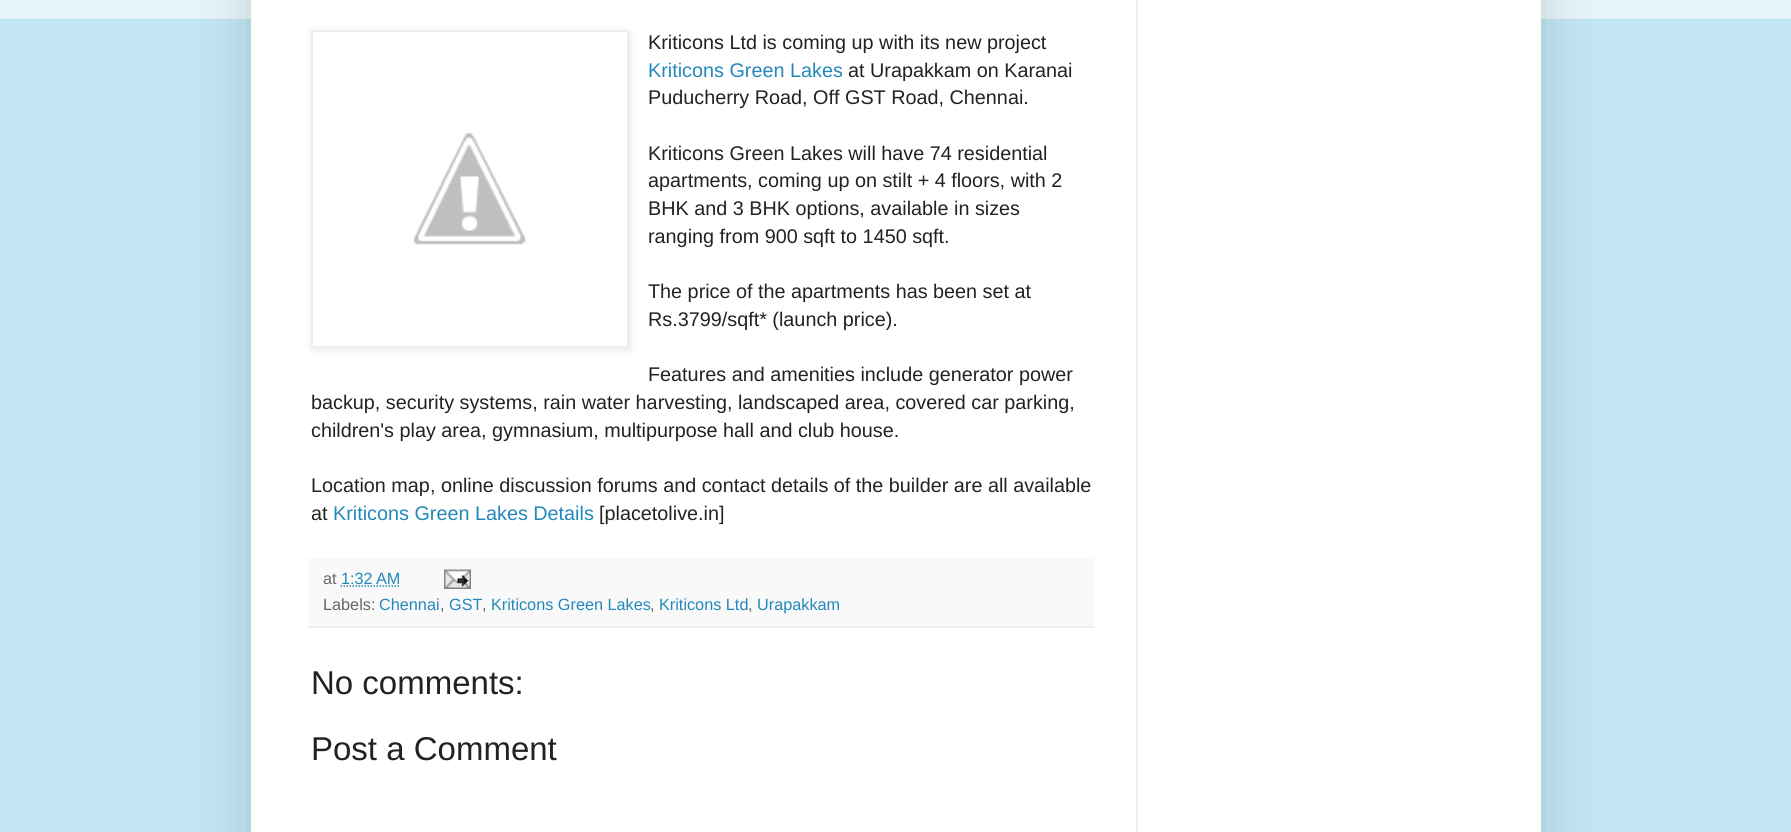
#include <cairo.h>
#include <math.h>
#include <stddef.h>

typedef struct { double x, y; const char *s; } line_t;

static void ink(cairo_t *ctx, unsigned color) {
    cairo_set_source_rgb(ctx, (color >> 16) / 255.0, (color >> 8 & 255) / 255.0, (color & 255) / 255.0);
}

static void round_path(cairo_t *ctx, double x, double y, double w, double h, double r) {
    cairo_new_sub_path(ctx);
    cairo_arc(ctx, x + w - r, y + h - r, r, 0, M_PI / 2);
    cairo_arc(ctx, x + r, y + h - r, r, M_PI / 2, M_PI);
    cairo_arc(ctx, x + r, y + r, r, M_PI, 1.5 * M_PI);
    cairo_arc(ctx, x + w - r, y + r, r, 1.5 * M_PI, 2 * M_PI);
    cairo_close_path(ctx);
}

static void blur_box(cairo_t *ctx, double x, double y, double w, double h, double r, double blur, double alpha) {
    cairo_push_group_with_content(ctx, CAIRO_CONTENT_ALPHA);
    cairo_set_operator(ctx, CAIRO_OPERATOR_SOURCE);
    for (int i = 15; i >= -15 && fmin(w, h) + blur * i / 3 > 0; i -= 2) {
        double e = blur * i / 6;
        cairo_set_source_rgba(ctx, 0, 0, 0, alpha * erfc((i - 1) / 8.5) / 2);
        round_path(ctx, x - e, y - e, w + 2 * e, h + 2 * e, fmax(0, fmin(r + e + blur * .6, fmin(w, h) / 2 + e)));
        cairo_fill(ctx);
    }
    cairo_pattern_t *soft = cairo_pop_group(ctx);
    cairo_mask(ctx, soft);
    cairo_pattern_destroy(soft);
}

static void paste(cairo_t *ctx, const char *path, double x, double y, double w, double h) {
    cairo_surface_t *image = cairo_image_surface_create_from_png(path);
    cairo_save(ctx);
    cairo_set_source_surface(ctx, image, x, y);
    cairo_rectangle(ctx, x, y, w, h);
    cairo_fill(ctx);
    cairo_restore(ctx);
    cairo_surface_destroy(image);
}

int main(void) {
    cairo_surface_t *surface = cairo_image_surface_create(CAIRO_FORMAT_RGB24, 1791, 832);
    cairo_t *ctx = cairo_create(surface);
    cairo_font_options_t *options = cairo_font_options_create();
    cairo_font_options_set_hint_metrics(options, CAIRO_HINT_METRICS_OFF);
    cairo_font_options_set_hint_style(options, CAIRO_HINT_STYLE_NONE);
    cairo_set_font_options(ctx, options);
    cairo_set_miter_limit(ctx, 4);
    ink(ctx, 0xC2E5F2);
    cairo_paint(ctx);
    paste(ctx, "media/1.png", 0, 0, 1791, 19);
    ink(ctx, 0x000000);
    blur_box(ctx, 251, -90, 1290, 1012, 0, 30, 0.15);
    ink(ctx, 0xFFFFFF);
    cairo_rectangle(ctx, 251, 0, 1290, 832);
    cairo_fill(ctx);
    ink(ctx, 0x000000);
    blur_box(ctx, 312, 32, 318, 318, 0, 4, 0.1);
    ink(ctx, 0xFFFFFF);
    cairo_rectangle(ctx, 312, 31, 316, 316);
    cairo_fill_preserve(ctx);
    ink(ctx, 0xEEEEEE);
    cairo_stroke(ctx);
    paste(ctx, "media/2.png", 413, 132, 113, 113);
    cairo_select_font_face(ctx, "Liberation Sans", CAIRO_FONT_SLANT_NORMAL, CAIRO_FONT_WEIGHT_NORMAL);
    cairo_set_font_size(ctx, 19.8);
    ink(ctx, 0x222222);
    cairo_move_to(ctx, 648, 49);
    cairo_show_text(ctx, "Kriticons Ltd is coming up with its new project");
    ink(ctx, 0x2288BB);
    cairo_move_to(ctx, 648, 77);
    cairo_show_text(ctx, "Kriticons Green Lakes");
    ink(ctx, 0x222222);
    {
        static const line_t items[] = {
            {848, 77, "at Urapakkam on Karanai"},
            {648, 104, "Puducherry Road, Off GST Road, Chennai."},
            {648, 160, "Kriticons Green Lakes will have 74 residential"},
            {648, 187, "apartments, coming up on stilt + 4 floors, with 2"},
            {648, 215, "BHK and 3 BHK options, available in sizes"},
            {648, 243, "ranging from 900 sqft to 1450 sqft."},
            {648, 298, "The price of the apartments has been set at"},
            {648, 326, "Rs.3799/sqft* (launch price)."},
            {648, 381, "Features and amenities include generator power"},
            {311, 409, "backup, security systems, rain water harvesting, landscaped area, covered car parking,"},
            {311, 437, "children's play area, gymnasium, multipurpose hall and club house."},
            {311, 492, "Location map, online discussion forums and contact details of the builder are all available"},
            {311, 520, "at"},
        };
        for (size_t i = 0; i < sizeof items / sizeof *items; i++) {
            cairo_move_to(ctx, items[i].x, items[i].y);
            cairo_show_text(ctx, items[i].s);
        }
    }
    ink(ctx, 0x2288BB);
    cairo_move_to(ctx, 333, 520);
    cairo_show_text(ctx, "Kriticons Green Lakes Details");
    ink(ctx, 0x222222);
    cairo_move_to(ctx, 599, 520);
    cairo_show_text(ctx, "[placetolive.in]");
    ink(ctx, 0xF9F9F9);
    cairo_rectangle(ctx, 308, 558, 786, 68);
    cairo_fill(ctx);
    ink(ctx, 0xEEEEEE);
    cairo_rectangle(ctx, 308, 626, 786, 2);
    cairo_fill(ctx);
    cairo_set_font_size(ctx, 16.25);
    ink(ctx, 0x666666);
    cairo_move_to(ctx, 323, 584);
    cairo_show_text(ctx, "at");
    ink(ctx, 0x2288BB);
    cairo_move_to(ctx, 341, 584);
    cairo_show_text(ctx, "1:32 AM");
    cairo_new_path(ctx);
    cairo_move_to(ctx, 340.5, 586);
    cairo_line_to(ctx, 399.5, 586);
    cairo_set_line_width(ctx, 1.5);
    cairo_set_dash(ctx, (double[]){1.5, 1.5}, 2, 0);
    cairo_stroke(ctx);
    paste(ctx, "media/3.png", 444, 569, 27, 20);
    ink(ctx, 0x666666);
    cairo_move_to(ctx, 323, 610);
    cairo_show_text(ctx, "Labels:");
    ink(ctx, 0x2288BB);
    cairo_move_to(ctx, 379, 610);
    cairo_show_text(ctx, "Chennai");
    ink(ctx, 0x666666);
    cairo_move_to(ctx, 440, 610);
    cairo_show_text(ctx, ",");
    ink(ctx, 0x2288BB);
    cairo_move_to(ctx, 449, 610);
    cairo_show_text(ctx, "GST");
    ink(ctx, 0x666666);
    cairo_move_to(ctx, 482, 610);
    cairo_show_text(ctx, ",");
    ink(ctx, 0x2288BB);
    cairo_move_to(ctx, 491, 610);
    cairo_show_text(ctx, "Kriticons Green Lakes");
    ink(ctx, 0x666666);
    cairo_move_to(ctx, 650, 610);
    cairo_show_text(ctx, ",");
    ink(ctx, 0x2288BB);
    cairo_move_to(ctx, 659, 610);
    cairo_show_text(ctx, "Kriticons Ltd");
    ink(ctx, 0x666666);
    cairo_move_to(ctx, 748, 610);
    cairo_show_text(ctx, ",");
    ink(ctx, 0x2288BB);
    cairo_move_to(ctx, 757, 610);
    cairo_show_text(ctx, "Urapakkam");
    cairo_set_font_size(ctx, 33);
    ink(ctx, 0x222222);
    cairo_move_to(ctx, 311, 694);
    cairo_show_text(ctx, "No comments:");
    cairo_move_to(ctx, 311, 760);
    cairo_show_text(ctx, "Post a Comment");
    ink(ctx, 0xEEEEEE);
    cairo_rectangle(ctx, 1136, 0, 2, 832);
    cairo_fill(ctx);
    cairo_surface_write_to_png(surface, "image.png");
    cairo_font_options_destroy(options);
    cairo_destroy(ctx);
    cairo_surface_destroy(surface);
    return 0;
}
